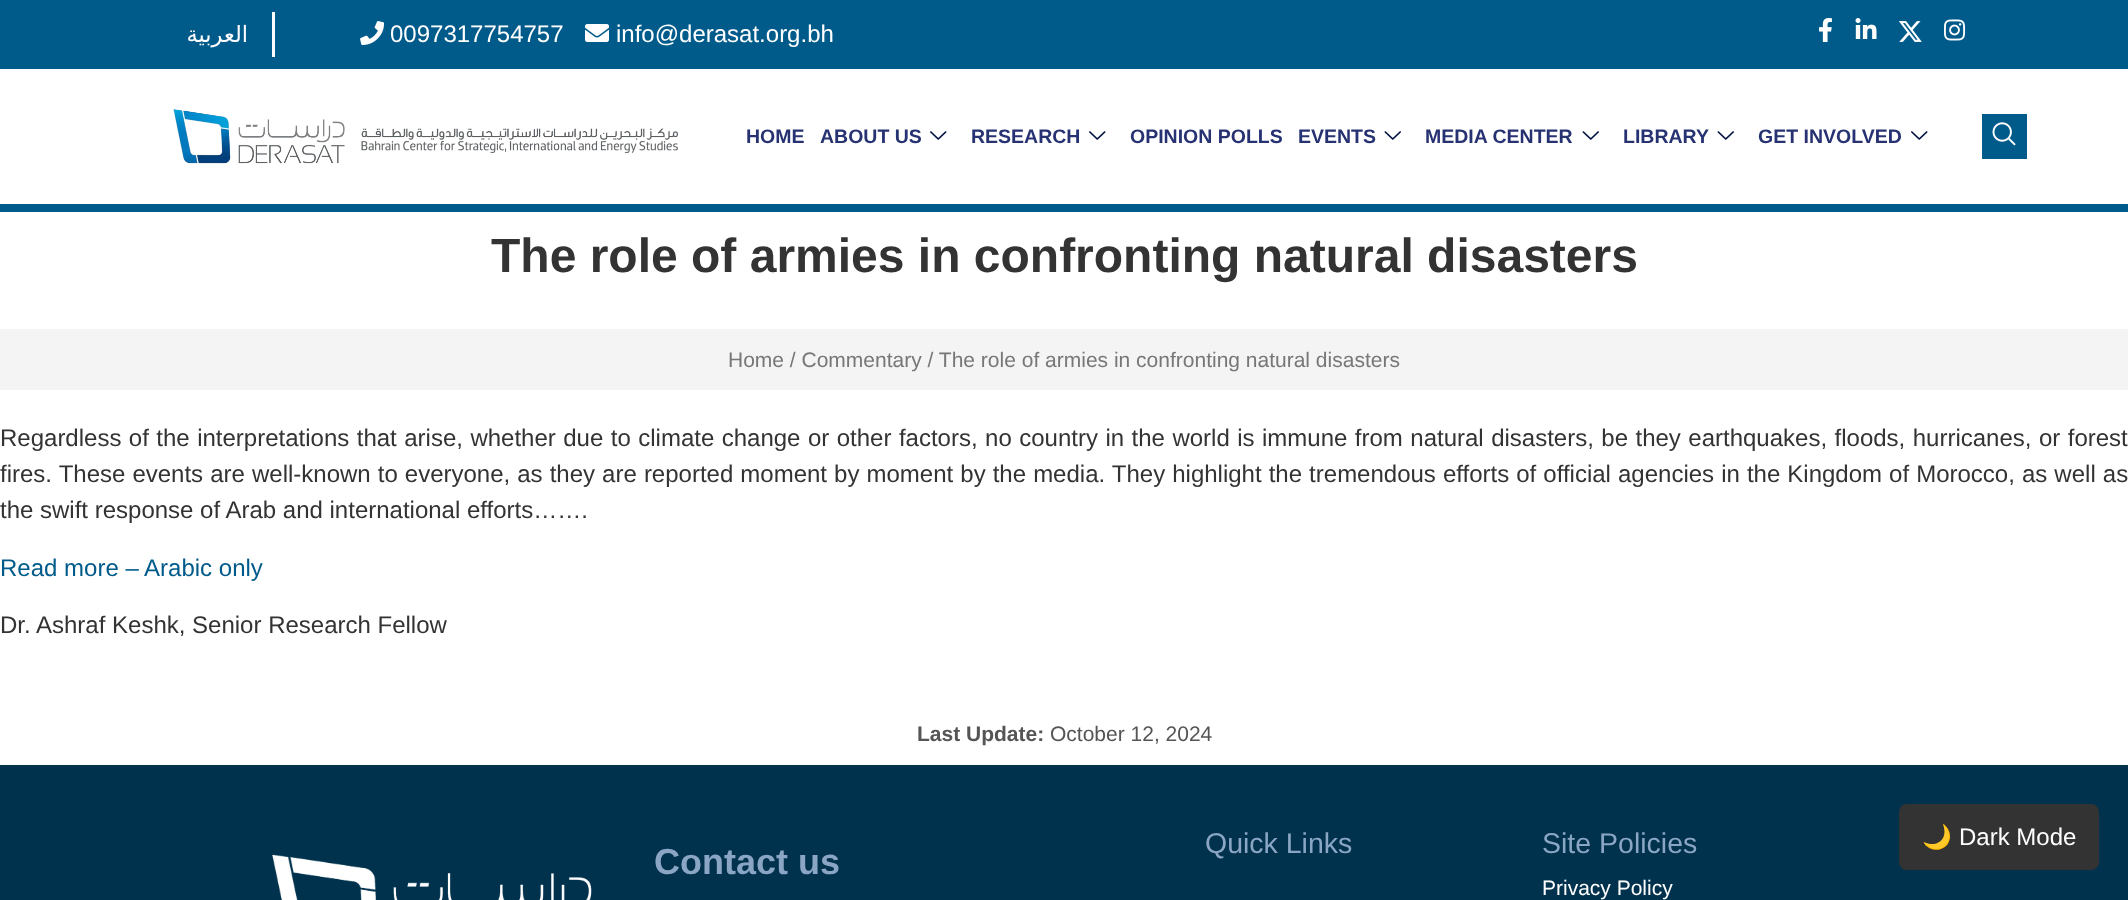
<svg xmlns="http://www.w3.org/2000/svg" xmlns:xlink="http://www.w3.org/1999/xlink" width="2128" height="900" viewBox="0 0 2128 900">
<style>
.cls-1{font:22.5px DejaVu Sans;direction:rtl;fill:#ffffff}
.cls-2{font:24px Liberation Sans;fill:#ffffff}
.cls-3{font:bold 19.5px Liberation Sans;fill:#273272}
.cls-4{font:bold 48px Liberation Sans;fill:#333333}
.cls-5{font:21px Liberation Sans;fill:#777777}
.cls-6{font:24px Liberation Sans;fill:#333333}
.cls-7{font:24px Liberation Sans;fill:#005b8b}
.cls-8{font:bold 21px Liberation Sans;fill:#555555}
.cls-9{font:21px Liberation Sans;fill:#555555}
.cls-10{font:bold 36px Liberation Sans;fill:#8aa6c4}
.cls-11{font:28.5px Liberation Sans;fill:#8aa6c4}
.cls-12{font:21px Liberation Sans;fill:#ffffff}
.cls-13{font:24px Noto Color Emoji;fill:#ffffff}
</style>
<rect width="100%" height="100%" fill="#ffffff"/>
<rect fill="#005b8b" x="0" y="0" width="2128" height="69"/>
<rect fill="#ffffff" x="272" y="12" width="3" height="45"/>
<image xlink:href="image0.png" x="360" y="21" width="25" height="24"/>
<image xlink:href="image1.png" x="585" y="24" width="24" height="18"/>
<image xlink:href="image2.png" x="1819" y="18" width="13" height="24"/>
<image xlink:href="image3.png" x="1855" y="18" width="22" height="21"/>
<image xlink:href="image4.png" x="1899" y="21" width="23" height="21"/>
<image xlink:href="image5.png" x="1944" y="19" width="22" height="22"/>
<rect fill="#005b8b" x="0" y="204" width="2128" height="8"/>
<image xlink:href="image6.png" x="173" y="109" width="505" height="55"/>
<image xlink:href="image7.png" x="930" y="131" width="17" height="9"/>
<image xlink:href="image7.png" x="1089" y="131" width="17" height="9"/>
<image xlink:href="image8.png" x="1384" y="131" width="17" height="9"/>
<image xlink:href="image8.png" x="1582" y="131" width="17" height="9"/>
<image xlink:href="image8.png" x="1717" y="131" width="17" height="9"/>
<image xlink:href="image7.png" x="1911" y="131" width="17" height="9"/>
<rect fill="#005b8b" x="1982" y="114" width="45" height="45"/>
<image xlink:href="image9.png" x="1992" y="122" width="24" height="24"/>
<rect fill="#f4f4f4" x="0" y="329" width="2128" height="61"/>
<rect fill="#00324d" x="0" y="765" width="2128" height="135"/>
<image xlink:href="image10.png" x="272" y="854" width="320" height="46"/>
<rect fill="#333333" x="1899" y="804" width="200" height="66" rx="8"/>
<text class="cls-1" x="248" y="42">العربية</text>
<text class="cls-2" x="390" y="42">0097317754757</text>
<text class="cls-2" x="616" y="42">info@derasat.org.bh</text>
<text class="cls-3" x="746" y="143">HOME</text>
<text class="cls-3" x="820" y="143">ABOUT US</text>
<text class="cls-3" x="971" y="143">RESEARCH</text>
<text class="cls-3" x="1130" y="143">OPINION POLLS</text>
<text class="cls-3" x="1298" y="143">EVENTS</text>
<text class="cls-3" x="1425" y="143">MEDIA CENTER</text>
<text class="cls-3" x="1623" y="143">LIBRARY</text>
<text class="cls-3" x="1758" y="143">GET INVOLVED</text>
<text class="cls-4" x="491" y="272">The role of armies in confronting natural disasters</text>
<text class="cls-5" x="728" y="367">Home / Commentary / The role of armies in confronting natural disasters</text>
<text class="cls-6"><tspan x="0" y="446" word-spacing="0.8">Regardless of the interpretations that arise, whether due to climate change or other factors, no country in the world is immune from natural disasters, be they earthquakes, floods, hurricanes, or forest</tspan><tspan x="0" y="482" word-spacing="0.4">fires. These events are well-known to everyone, as they are reported moment by moment by the media. They highlight the tremendous efforts of official agencies in the Kingdom of Morocco, as well as</tspan><tspan x="0" y="518">the swift response of Arab and international efforts…….</tspan></text>
<text class="cls-7" x="0" y="576">Read more – Arabic only</text>
<text class="cls-6" x="0" y="633">Dr. Ashraf Keshk, Senior Research Fellow</text>
<text class="cls-8" x="917" y="741">Last Update:</text>
<text class="cls-9" x="1050" y="741">October 12, 2024</text>
<text class="cls-10" x="654" y="874">Contact us</text>
<text class="cls-11" x="1205" y="853">Quick Links</text>
<text class="cls-11" x="1542" y="853">Site Policies</text>
<text class="cls-12" x="1542" y="895">Privacy Policy</text>
<text class="cls-13" x="1922" y="845">🌙</text>
<text class="cls-2" x="1959" y="845">Dark Mode</text>
</svg>
